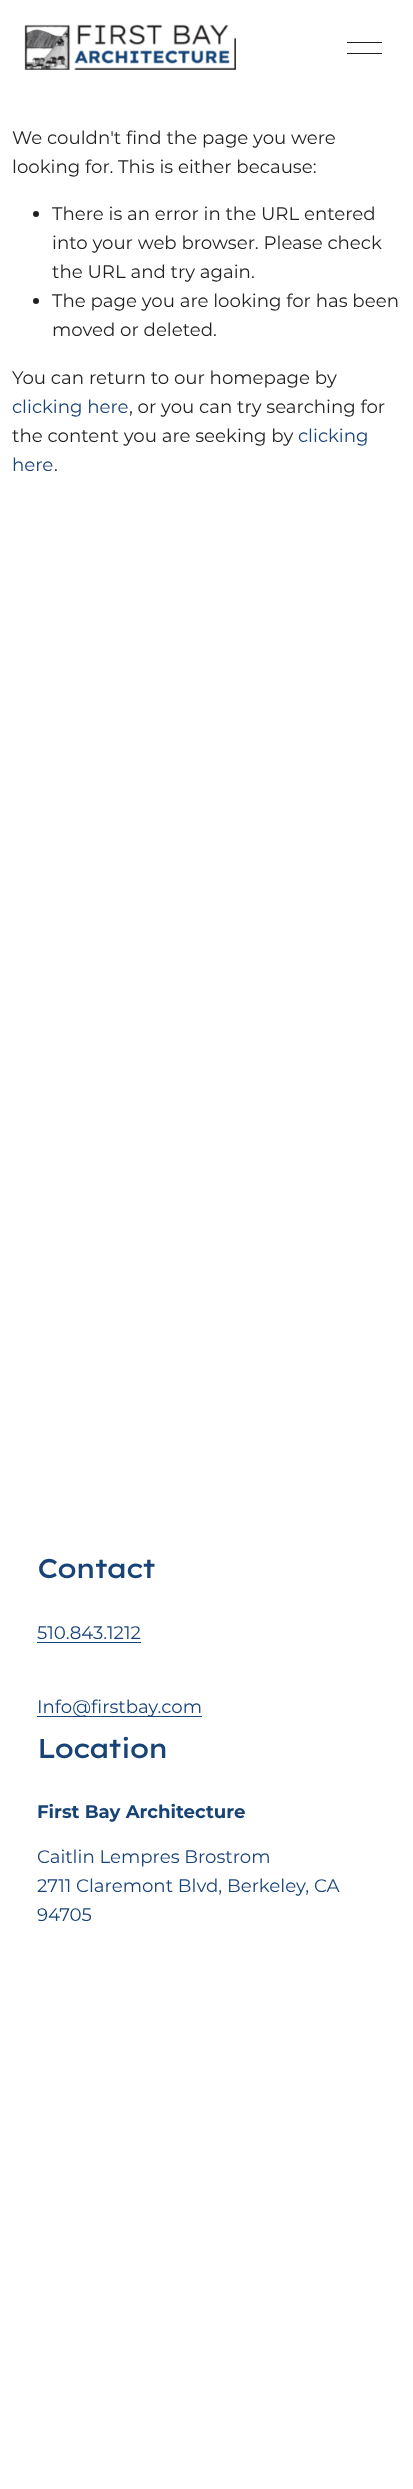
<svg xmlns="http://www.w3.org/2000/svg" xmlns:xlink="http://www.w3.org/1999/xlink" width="413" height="2489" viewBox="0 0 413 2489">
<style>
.cls-1{font:18.2px Montserrat;fill:#221f1f}
.cls-2{font:18.2px Montserrat;fill:#184377}
.cls-3{font:500 27px Lexend Exa;letter-spacing:-2px;fill:#184377}
.cls-4{font:bold 18.2px Montserrat;fill:#184377}
</style>
<rect width="100%" height="100%" fill="#ffffff"/>
<image xlink:href="image0.png" x="24" y="24" width="212" height="46"/>
<rect fill="#221f1f" x="347" y="42" width="35" height="1"/>
<rect fill="#221f1f" x="347" y="53" width="35" height="1"/>
<circle fill="#221f1f" cx="36" cy="214" r="3"/>
<circle fill="#221f1f" cx="36" cy="301" r="3"/>
<rect fill="#184377" x="37" y="1642" width="104" height="1"/>
<rect fill="#184377" x="37" y="1716" width="165" height="1"/>
<text class="cls-1"><tspan x="12" y="144">We couldn't find the page you were</tspan><tspan x="12" y="173">looking for. This is either because:</tspan></text>
<text class="cls-1"><tspan x="52" y="220">There is an error in the URL entered</tspan><tspan x="52" y="249">into your web browser. Please check</tspan><tspan x="52" y="278">the URL and try again.</tspan><tspan x="52" y="307">The page you are looking for has been</tspan><tspan x="52" y="336">moved or deleted.</tspan></text>
<text class="cls-1" x="12" y="384">You can return to our homepage by</text>
<text class="cls-2" x="12" y="413">clicking here</text>
<text class="cls-1" x="129" y="413">, or you can try searching for</text>
<text class="cls-1" x="12" y="442">the content you are seeking by</text>
<text class="cls-2" x="298" y="442">clicking</text>
<text class="cls-2" x="12" y="471">here</text>
<text class="cls-1" x="54" y="471">.</text>
<text class="cls-3" x="37" y="1578">Contact</text>
<text class="cls-2" x="37" y="1639">510.843.1212</text>
<text class="cls-2" x="37" y="1713">Info@firstbay.com</text>
<text class="cls-3" x="37" y="1758">Location</text>
<text class="cls-4" x="37" y="1818">First Bay Architecture</text>
<text class="cls-2"><tspan x="37" y="1863">Caitlin Lempres Brostrom</tspan><tspan x="37" y="1892">2711 Claremont Blvd, Berkeley, CA</tspan><tspan x="37" y="1921">94705</tspan></text>
</svg>
